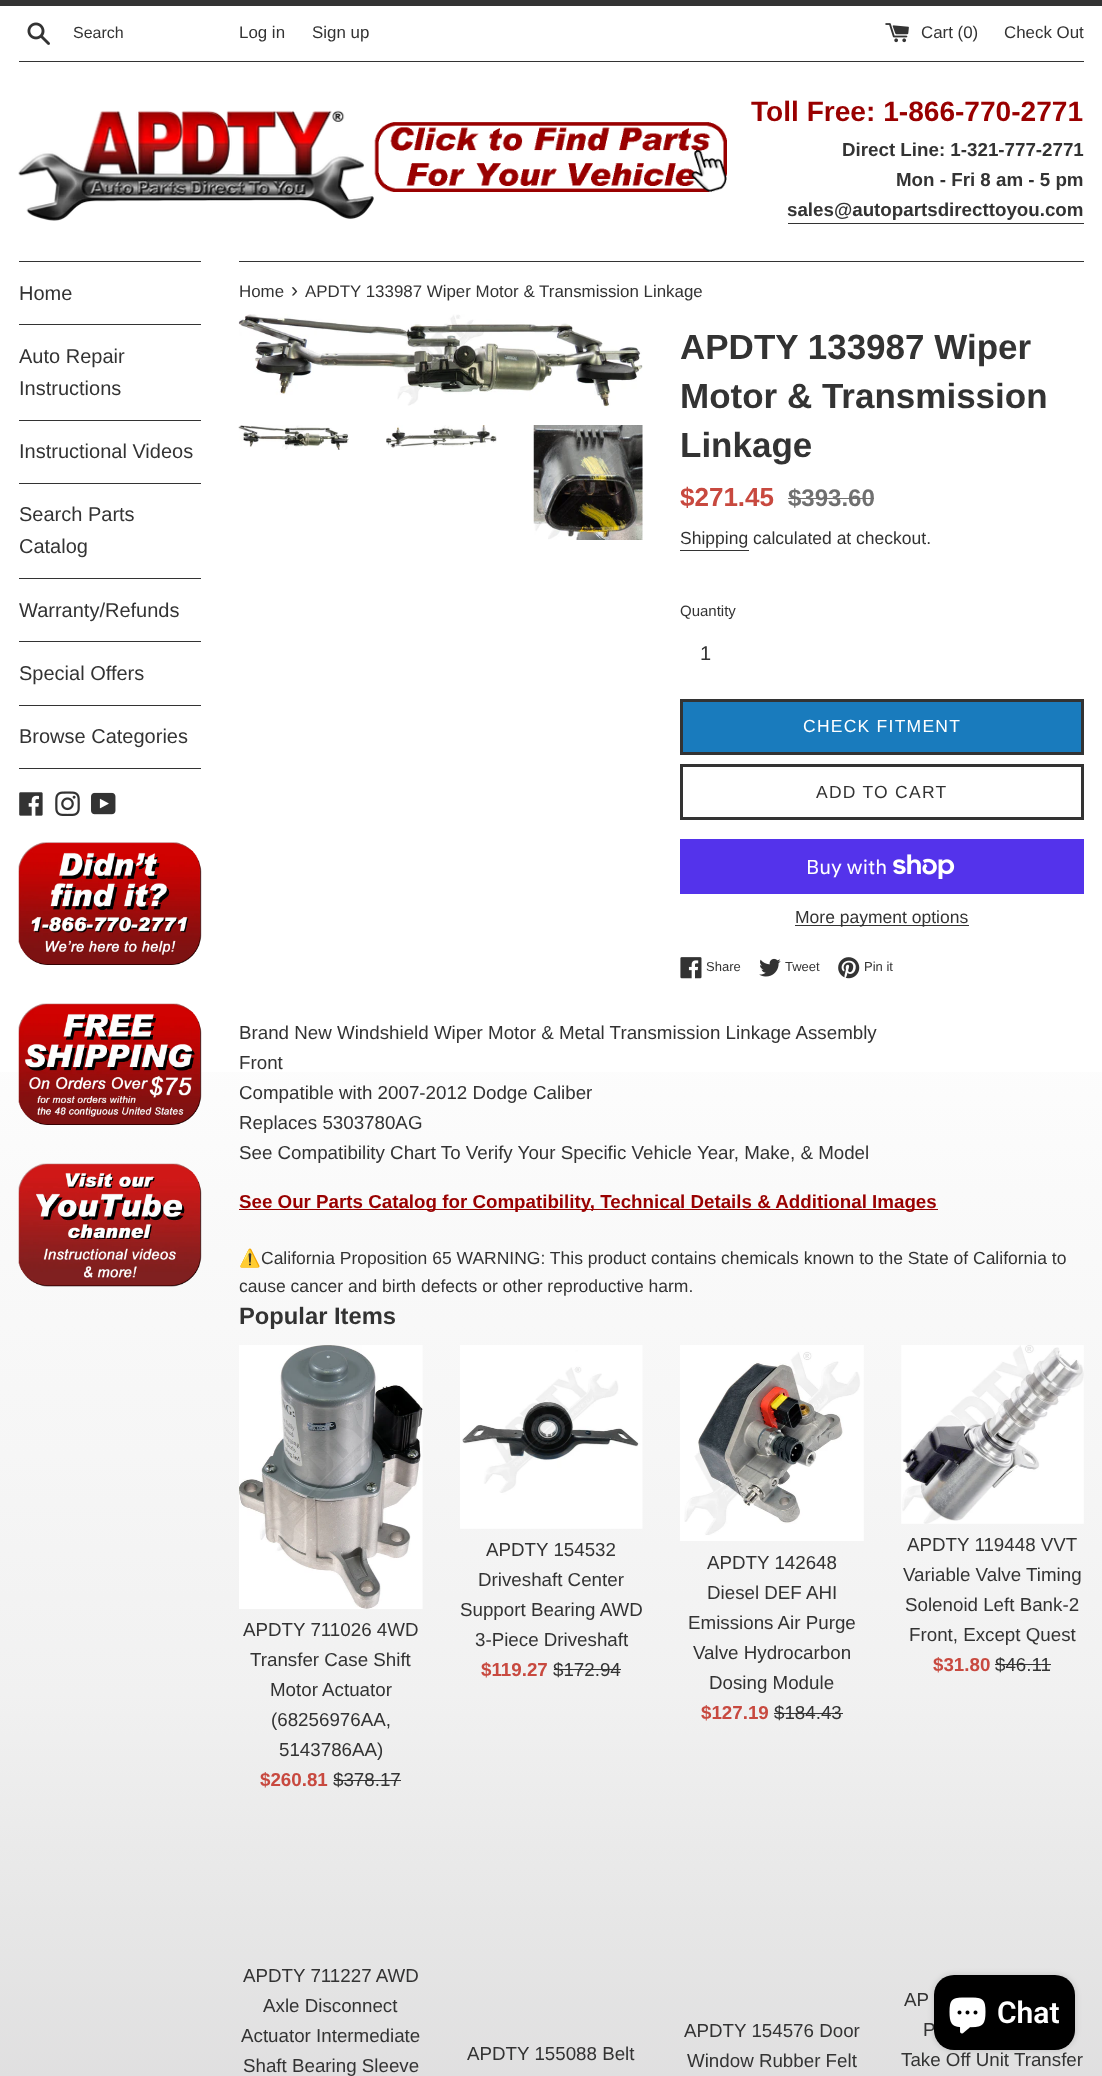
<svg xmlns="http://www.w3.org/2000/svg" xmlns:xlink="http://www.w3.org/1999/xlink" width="1102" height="2076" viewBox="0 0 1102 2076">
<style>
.cls-1{font:16px Liberation Sans;fill:#333333}
.cls-2{font:16.9px Liberation Sans;fill:#333333}
.cls-3{font:bold 28.1px Liberation Sans;fill:#990000}
.cls-4{font:bold 18.75px Liberation Sans;fill:#333333}
.cls-5{font:20px Liberation Sans;fill:#333333}
.cls-6{font:21px Liberation Sans;fill:#333333}
.cls-7{font:bold 35px Liberation Sans;fill:#333333}
.cls-8{font:bold 26px Liberation Sans;fill:#c8493f}
.cls-9{font:bold 24px Liberation Sans;fill:#707070}
.cls-10{font:17.5px Liberation Sans;fill:#333333}
.cls-11{font:15px Liberation Sans;fill:#333333}
.cls-12{font:17.5px Liberation Sans;letter-spacing:1.25px;fill:#ffffff}
.cls-13{font:17.5px Liberation Sans;letter-spacing:1.25px;fill:#333333}
.cls-14{font:20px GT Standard;fill:#ffffff}
.cls-15{font:13px Liberation Sans;fill:#333333}
.cls-16{font:18.75px Liberation Sans;fill:#333333}
.cls-17{font:bold 18.75px Liberation Sans;fill:#990000}
.cls-18{font:17.5px Noto Color Emoji;fill:#333333}
.cls-19{font:bold 23.75px Liberation Sans;fill:#333333}
.cls-20{font:bold 18.75px Liberation Sans;fill:#c8493f}
.cls-21{font:600 30px Roboto;fill:#ffffff}
</style>
<defs>
<linearGradient id="g1" gradientUnits="userSpaceOnUse" x1="551" y1="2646" x2="551" y2="0"><stop offset="0" stop-color="#c8c6c6"/><stop offset="0.09" stop-color="#d2d1d1"/><stop offset="0.18" stop-color="#dcdbdc"/><stop offset="0.27" stop-color="#e6e6e6"/><stop offset="0.36" stop-color="#f1f1f1"/><stop offset="0.45" stop-color="#f6f6f6"/><stop offset="0.55" stop-color="#fafafa"/><stop offset="0.64" stop-color="#ffffff"/><stop offset="1" stop-color="#ffffff"/></linearGradient>
</defs>
<rect width="100%" height="100%" fill="#ffffff"/>
<rect fill="url(#g1)" x="0" y="1072" width="1102" height="1004"/>
<rect fill="#333333" x="0" y="0" width="1102" height="6"/>
<image xlink:href="image0.png" x="27" y="22" width="23" height="23"/>
<image xlink:href="image1.png" x="885" y="23" width="24" height="20"/>
<rect fill="#333333" x="19" y="61" width="1065" height="1"/>
<image xlink:href="image2.png" x="18" y="110" width="356" height="111"/>
<image xlink:href="image3.png" x="374" y="122" width="353" height="70"/>
<rect fill="#333333" x="788" y="223" width="296" height="1"/>
<rect fill="#333333" x="19" y="261" width="182" height="1"/>
<rect fill="#333333" x="19" y="324" width="182" height="1"/>
<rect fill="#333333" x="19" y="420" width="182" height="1"/>
<rect fill="#333333" x="19" y="483" width="182" height="1"/>
<rect fill="#333333" x="19" y="578" width="182" height="1"/>
<rect fill="#333333" x="19" y="641" width="182" height="1"/>
<rect fill="#333333" x="19" y="705" width="182" height="1"/>
<rect fill="#333333" x="19" y="768" width="182" height="1"/>
<image xlink:href="image4.png" x="19" y="792" width="24" height="24"/>
<image xlink:href="image5.png" x="55" y="791" width="25" height="25"/>
<image xlink:href="image6.png" x="91" y="792" width="25" height="23"/>
<image xlink:href="image7.png" x="18" y="842" width="184" height="123"/>
<image xlink:href="image8.png" x="18" y="1003" width="184" height="122"/>
<image xlink:href="image9.png" x="18" y="1163" width="184" height="124"/>
<rect fill="#333333" x="239" y="261" width="845" height="1"/>
<image xlink:href="image10.png" x="238" y="314" width="405" height="93"/>
<image xlink:href="image11.png" x="238" y="425" width="111" height="25"/>
<image xlink:href="image12.png" x="386" y="425" width="111" height="23"/>
<image xlink:href="image13.png" x="533" y="425" width="110" height="115"/>
<rect fill="#707070" x="788" y="498" width="86" height="1"/>
<rect fill="#333333" x="680" y="550" width="69" height="1"/>
<rect fill="#197bbd" stroke="#333333" stroke-width="3" x="681.5" y="700.5" width="401" height="53"/>
<rect fill="none" stroke="#333333" stroke-width="3" x="681.5" y="765.5" width="401" height="53"/>
<rect fill="#5433eb" x="680" y="839" width="404" height="55"/>
<image xlink:href="image14.png" x="893" y="854" width="62" height="25"/>
<rect fill="#333333" x="795" y="925" width="174" height="1"/>
<image xlink:href="image15.png" x="680" y="957" width="22" height="22"/>
<image xlink:href="image16.png" x="759" y="958" width="22" height="19"/>
<image xlink:href="image17.png" x="838" y="957" width="22" height="22"/>
<rect fill="#990000" x="239" y="1209" width="699" height="1"/>
<image xlink:href="image18.png" x="239" y="1345" width="184" height="264"/>
<rect fill="#333333" x="334" y="1780" width="67" height="1"/>
<image xlink:href="image19.png" x="460" y="1345" width="183" height="184"/>
<rect fill="#333333" x="554" y="1669" width="67" height="1"/>
<image xlink:href="image20.png" x="680" y="1345" width="184" height="196"/>
<rect fill="#333333" x="774" y="1713" width="69" height="1"/>
<image xlink:href="image21.png" x="901" y="1345" width="183" height="179"/>
<rect fill="#333333" x="995" y="1664" width="56" height="1"/>
<rect fill="#000000" fill-opacity="0.15" filter="blur(3px)" x="934" y="1975" width="141" height="75" rx="20"/>
<text class="cls-1" x="73" y="38">Search</text>
<text class="cls-2" x="239" y="38">Log in</text>
<text class="cls-2" x="312" y="38">Sign up</text>
<text class="cls-2" x="921" y="38">Cart (0)</text>
<text class="cls-2" x="1004" y="38">Check Out</text>
<text class="cls-3" x="751" y="121">Toll Free: 1-866-770-2771</text>
<text class="cls-4" x="842" y="156">Direct Line: 1-321-777-2771</text>
<text class="cls-4" x="896" y="186">Mon - Fri 8 am - 5 pm</text>
<text class="cls-4" x="787" y="216">sales@autopartsdirecttoyou.com</text>
<text class="cls-5" x="19" y="300">Home</text>
<text class="cls-5"><tspan x="19" y="363">Auto Repair</tspan><tspan x="19" y="395">Instructions</tspan></text>
<text class="cls-5" x="19" y="458">Instructional Videos</text>
<text class="cls-5"><tspan x="19" y="521">Search Parts</tspan><tspan x="19" y="553">Catalog</tspan></text>
<text class="cls-5" x="19" y="617">Warranty/Refunds</text>
<text class="cls-5" x="19" y="680">Special Offers</text>
<text class="cls-5" x="19" y="743">Browse Categories</text>
<text class="cls-2" x="239" y="297">Home</text>
<text class="cls-6" x="291" y="297">›</text>
<text class="cls-2" x="305" y="297">APDTY 133987 Wiper Motor &amp; Transmission Linkage</text>
<text class="cls-7"><tspan x="680" y="359">APDTY 133987 Wiper</tspan><tspan x="680" y="408">Motor &amp; Transmission</tspan><tspan x="680" y="457">Linkage</tspan></text>
<text class="cls-8" x="680" y="506">$271.45</text>
<text class="cls-9" x="788" y="506">$393.60</text>
<text class="cls-10" x="680" y="544">Shipping calculated at checkout.</text>
<text class="cls-11" x="680" y="616">Quantity</text>
<text class="cls-5" x="700" y="660">1</text>
<text class="cls-12" x="803" y="732">CHECK FITMENT</text>
<text class="cls-13" x="816" y="798">ADD TO CART</text>
<text class="cls-14" x="806" y="874">Buy with</text>
<text class="cls-10" x="795" y="923">More payment options</text>
<text class="cls-15" x="706" y="971">Share</text>
<text class="cls-15" x="785" y="971">Tweet</text>
<text class="cls-15" x="864" y="971">Pin it</text>
<text class="cls-16"><tspan x="239" y="1039">Brand New Windshield Wiper Motor &amp; Metal Transmission Linkage Assembly</tspan><tspan x="239" y="1069">Front</tspan><tspan x="239" y="1099">Compatible with 2007-2012 Dodge Caliber</tspan><tspan x="239" y="1129">Replaces 5303780AG</tspan><tspan x="239" y="1159">See Compatibility Chart To Verify Your Specific Vehicle Year, Make, &amp; Model</tspan></text>
<text class="cls-17" x="239" y="1208">See Our Parts Catalog for Compatibility, Technical Details &amp; Additional Images</text>
<text class="cls-18" x="239" y="1264">⚠️</text>
<text class="cls-10" x="261" y="1264">California Proposition 65 WARNING: This product contains chemicals known to the State of California to</text>
<text class="cls-10" x="239" y="1292">cause cancer and birth defects or other reproductive harm.</text>
<text class="cls-19" x="239" y="1324">Popular Items</text>
<text class="cls-16" x="243" y="1636">APDTY 711026 4WD</text>
<text class="cls-16" x="250" y="1666">Transfer Case Shift</text>
<text class="cls-16" x="270" y="1696">Motor Actuator</text>
<text class="cls-16" x="271" y="1726">(68256976AA,</text>
<text class="cls-16" x="279" y="1756">5143786AA)</text>
<text class="cls-20" x="260" y="1786">$260.81</text>
<text class="cls-16" x="333" y="1786">$378.17</text>
<text class="cls-16" x="486" y="1556">APDTY 154532</text>
<text class="cls-16" x="478" y="1586">Driveshaft Center</text>
<text class="cls-16" x="460" y="1616">Support Bearing AWD</text>
<text class="cls-16" x="475" y="1646">3-Piece Driveshaft</text>
<text class="cls-20" x="481" y="1676">$119.27</text>
<text class="cls-16" x="553" y="1676">$172.94</text>
<text class="cls-16"><tspan x="707" y="1569">APDTY 142648</tspan><tspan x="707" y="1599">Diesel DEF AHI</tspan></text>
<text class="cls-16" x="688" y="1629">Emissions Air Purge</text>
<text class="cls-16" x="693" y="1659">Valve Hydrocarbon</text>
<text class="cls-16" x="709" y="1689">Dosing Module</text>
<text class="cls-20" x="701" y="1719">$127.19</text>
<text class="cls-16" x="774" y="1719">$184.43</text>
<text class="cls-16" x="907" y="1551">APDTY 119448 VVT</text>
<text class="cls-16" x="903" y="1581">Variable Valve Timing</text>
<text class="cls-16" x="905" y="1611">Solenoid Left Bank-2</text>
<text class="cls-16" x="909" y="1641">Front, Except Quest</text>
<text class="cls-20" x="933" y="1671">$31.80</text>
<text class="cls-16" x="995" y="1671">$46.11</text>
<text class="cls-16" x="243" y="1982">APDTY 711227 AWD</text>
<text class="cls-16" x="263" y="2012">Axle Disconnect</text>
<text class="cls-16" x="241" y="2042">Actuator Intermediate</text>
<text class="cls-16" x="243" y="2072">Shaft Bearing Sleeve</text>
<text class="cls-16" x="467" y="2060">APDTY 155088 Belt</text>
<text class="cls-16" x="684" y="2037">APDTY 154576 Door</text>
<text class="cls-16" x="687" y="2067">Window Rubber Felt</text>
<text class="cls-16" x="904" y="2006">AP</text>
<text class="cls-16" x="923" y="2036">P</text>
<text class="cls-16" x="901" y="2066">Take Off Unit Transfer</text>
<rect fill="#000000" x="934" y="1975" width="141" height="75" rx="20"/>
<image xlink:href="image22.png" x="949" y="1997" width="37" height="37"/>
<text class="cls-21" x="997" y="2023">Chat</text>
</svg>
